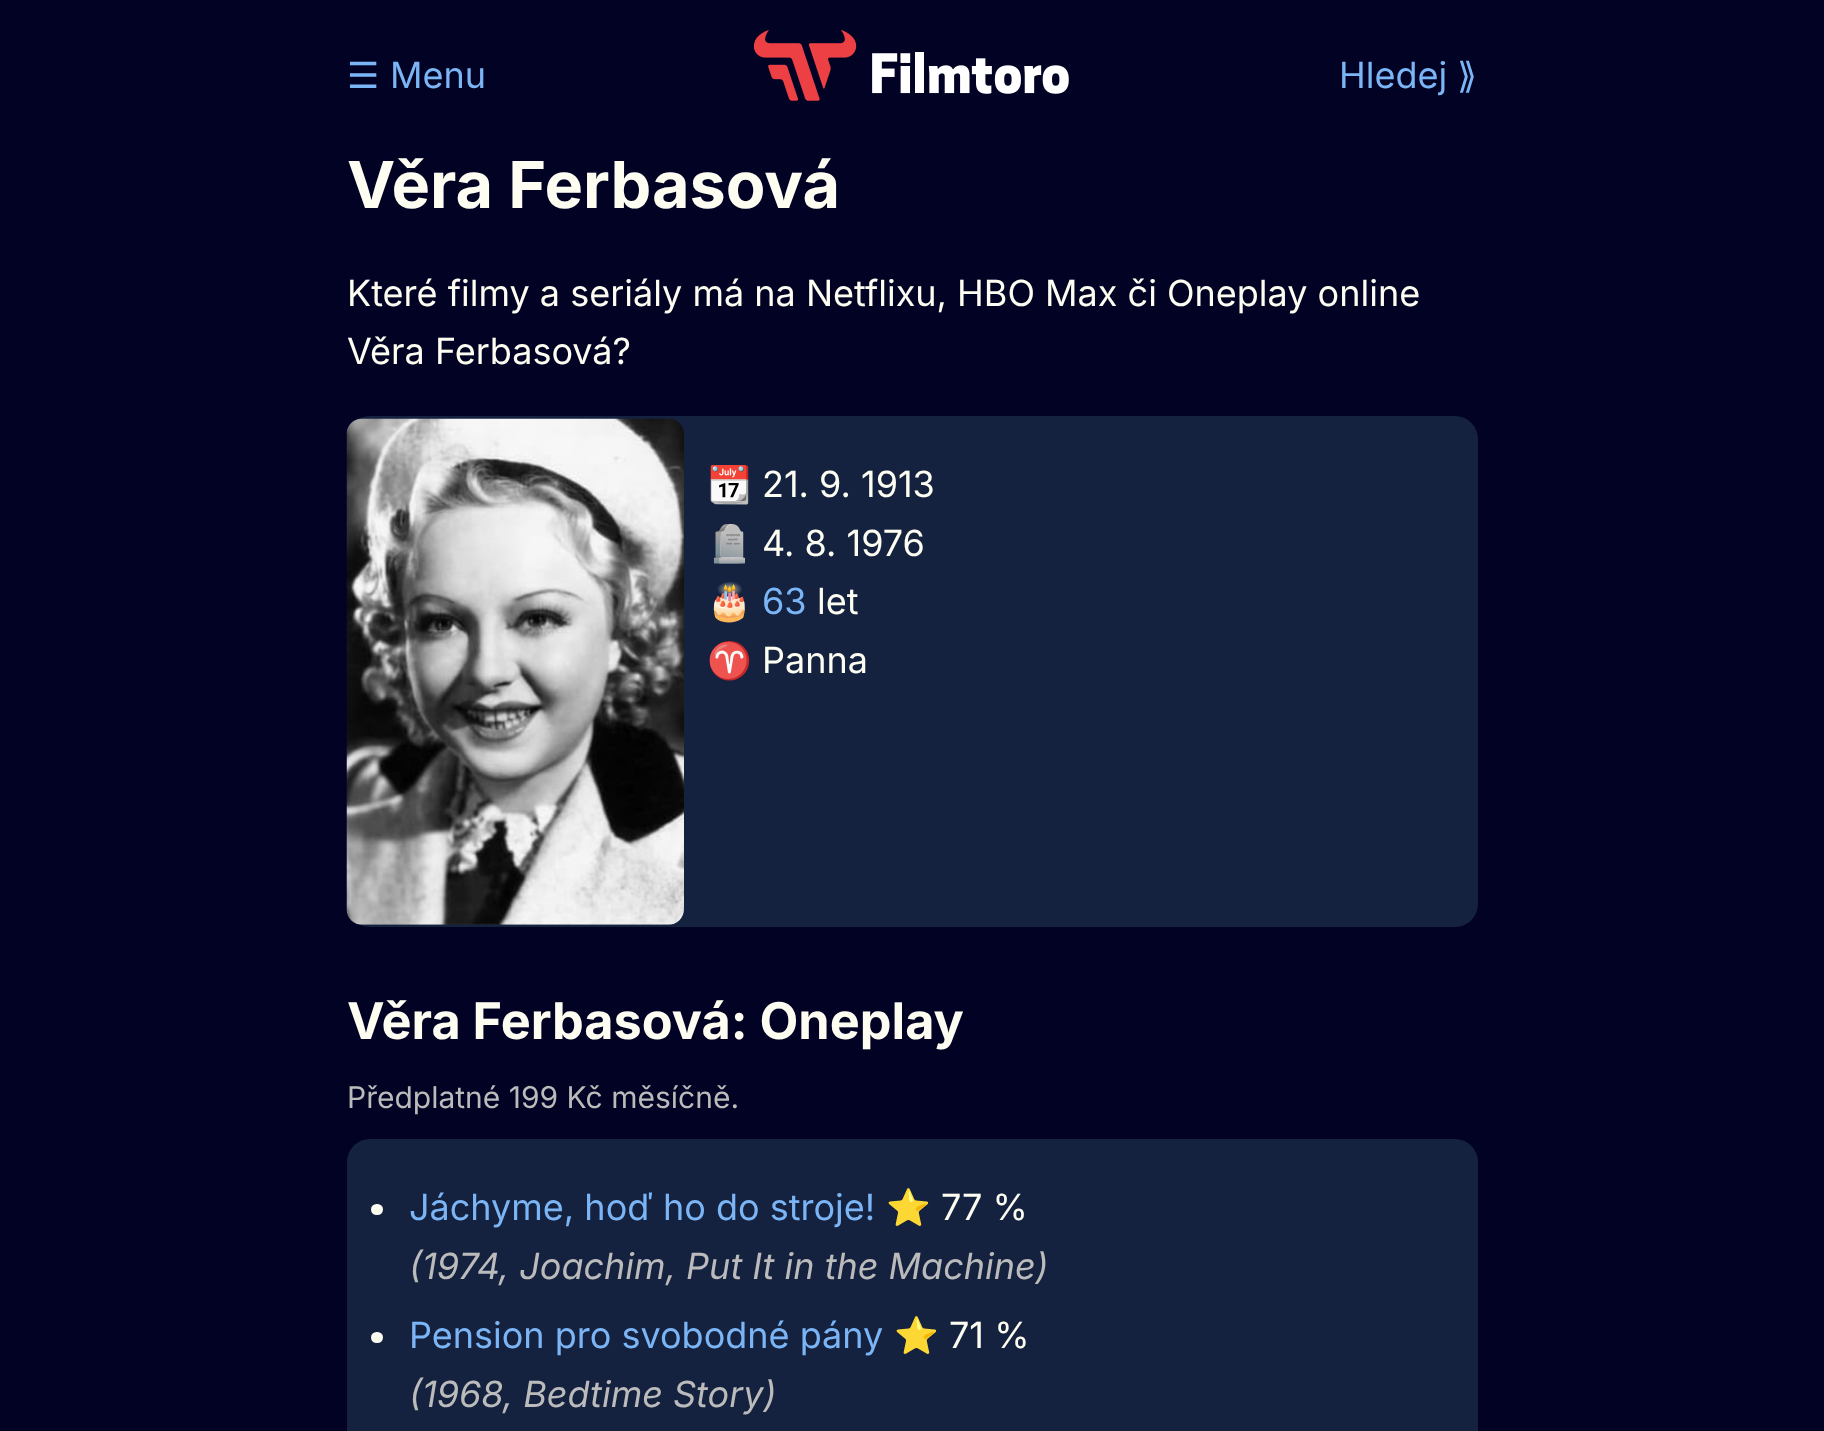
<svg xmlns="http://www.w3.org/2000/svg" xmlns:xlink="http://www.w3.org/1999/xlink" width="1824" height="1431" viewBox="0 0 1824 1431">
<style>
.cls-1{font:36px DejaVu Sans;fill:#7bb5f5}
.cls-2{font:36px Inter;fill:#7bb5f5}
.cls-3{font:bold 64.75px Inter;fill:#fdfdf1}
.cls-4{font:36px Inter;fill:#fdfdf1}
.cls-5{font:36px Noto Color Emoji;fill:#fdfdf1}
.cls-6{font:bold 50.4px Inter;fill:#fdfdf1}
.cls-7{font:30px Inter;fill:#bbbbbb}
.cls-8{font:italic 36px Inter;fill:#bbbbbb}
</style>
<rect width="100%" height="100%" fill="#020324"/>
<image xlink:href="image0.png" x="754" y="29" width="315" height="72"/>
<rect fill="#142240" x="347" y="416" width="1131" height="511" rx="23"/>
<image xlink:href="image1.png" x="346" y="418" width="338" height="507"/>
<rect fill="#142240" x="347" y="1139" width="1131" height="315" rx="23"/>
<rect fill="#fdfdf1" x="371" y="1204" width="12" height="11" rx="5.5"/>
<rect fill="#fdfdf1" x="371" y="1332" width="12" height="11" rx="5.5"/>
<text class="cls-1" x="347" y="88">☰</text>
<text class="cls-2" x="390" y="88">Menu</text>
<text class="cls-2" x="1339" y="88">Hledej</text>
<text class="cls-1" x="1457" y="88">⟫</text>
<text class="cls-3" x="347" y="208">Věra Ferbasová</text>
<text class="cls-4"><tspan x="347" y="306">Které filmy a seriály má na Netflixu, HBO Max či Oneplay online</tspan><tspan x="347" y="364">Věra Ferbasová?</tspan></text>
<text class="cls-5" x="707" y="497">📆</text>
<text class="cls-4" x="762" y="497">21. 9. 1913</text>
<text class="cls-5" x="707" y="556">🪦</text>
<text class="cls-4" x="762" y="556">4. 8. 1976</text>
<text class="cls-5" x="707" y="614">🎂</text>
<text class="cls-2" x="762" y="614">63</text>
<text class="cls-4" x="817" y="614">let</text>
<text class="cls-5" x="707" y="673">♈️</text>
<text class="cls-4" x="762" y="673">Panna</text>
<text class="cls-6" x="347" y="1039">Věra Ferbasová: Oneplay</text>
<text class="cls-7" x="347" y="1108">Předplatné 199 Kč měsíčně.</text>
<text class="cls-2" x="409" y="1220">Jáchyme, hoď ho do stroje!</text>
<text class="cls-5" x="886" y="1220">⭐️</text>
<text class="cls-4" x="941" y="1220">77 %</text>
<text class="cls-8" x="409" y="1279">(1974, Joachim, Put It in the Machine)</text>
<text class="cls-2" x="409" y="1348">Pension pro svobodné pány</text>
<text class="cls-5" x="894" y="1348">⭐️</text>
<text class="cls-4" x="949" y="1348">71 %</text>
<text class="cls-8" x="409" y="1407">(1968, Bedtime Story)</text>
</svg>
